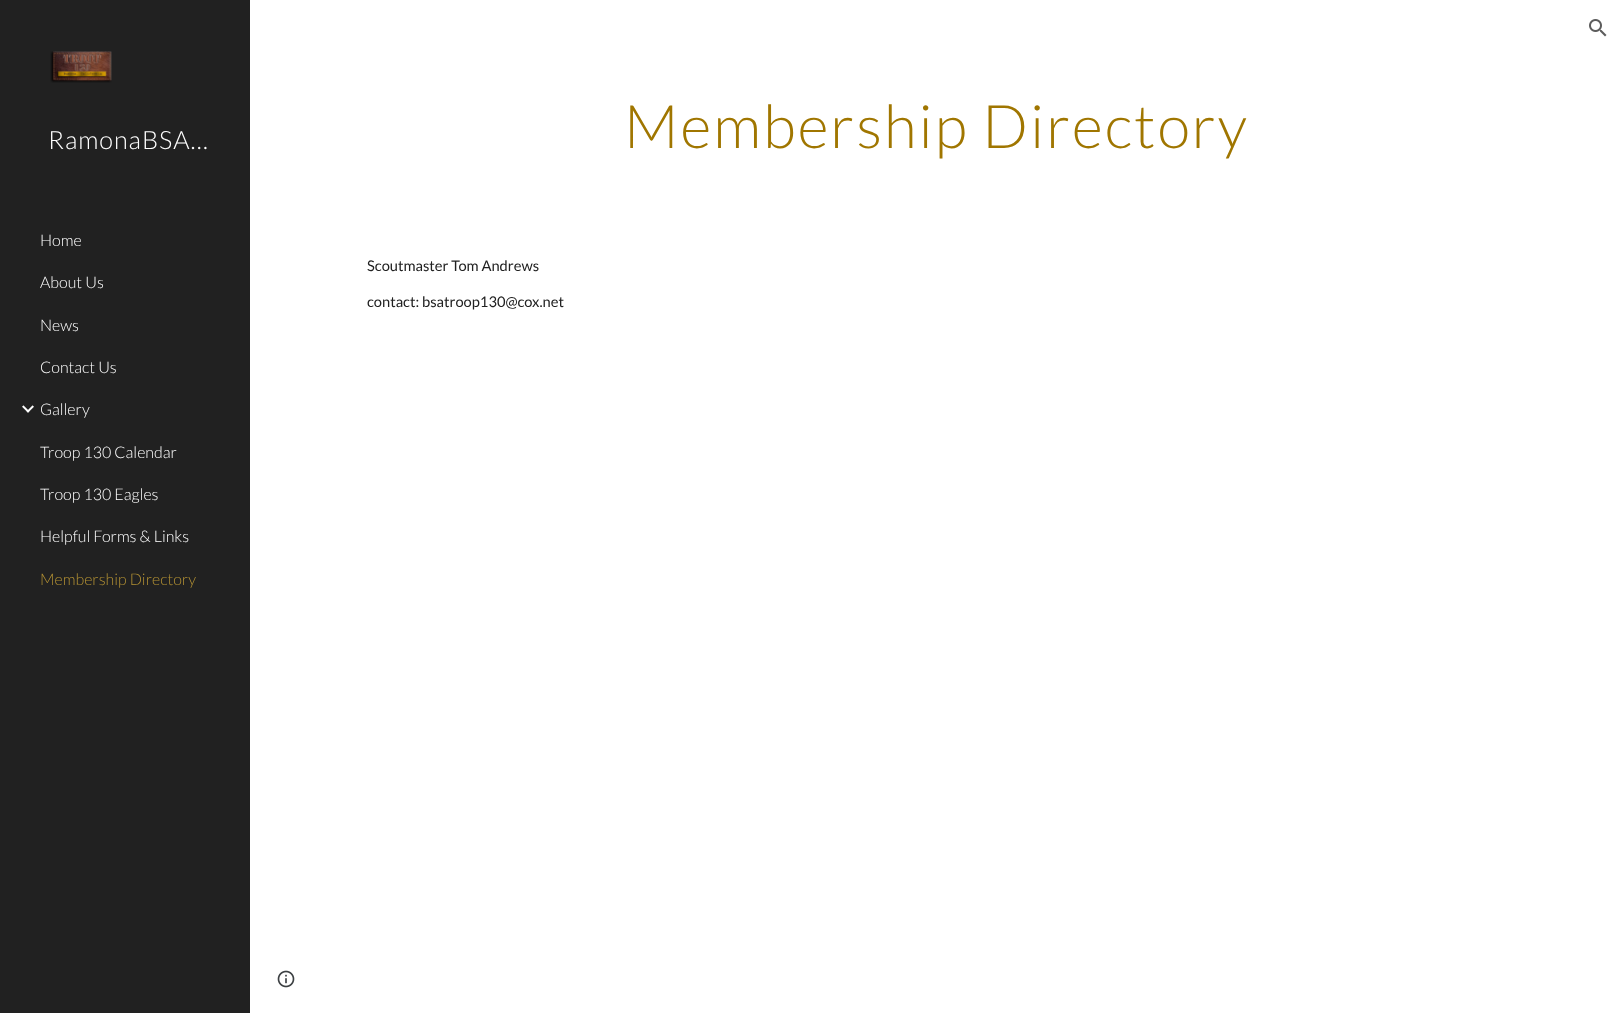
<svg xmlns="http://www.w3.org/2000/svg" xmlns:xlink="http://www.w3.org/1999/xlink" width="1622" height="1013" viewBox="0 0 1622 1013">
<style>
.cls-1{font:300 25.25px Lato;letter-spacing:1px;fill:#ffffff}
.cls-2{font:300 16px Lato;fill:#ffffff}
.cls-3{font:300 16px Lato;fill:#b39133}
.cls-4{font:300 60px Lato;letter-spacing:2px;fill:#a07600}
.cls-5{font:14.7px Lato;fill:#212121}
</style>
<rect width="100%" height="100%" fill="#ffffff"/>
<image xlink:href="image0.png" x="1589" y="19" width="18" height="18"/>
<rect fill="#212121" x="0" y="0" width="250" height="1013"/>
<image xlink:href="image1.png" x="50" y="51" width="62" height="32"/>
<image xlink:href="image2.png" x="22" y="405" width="12" height="8"/>
<image xlink:href="image3.png" x="277" y="970" width="18" height="18"/>
<text class="cls-1" x="48" y="149">RamonaBSA…</text>
<text class="cls-2" x="40" y="246">Home</text>
<text class="cls-2" x="40" y="288">About Us</text>
<text class="cls-2" x="40" y="331">News</text>
<text class="cls-2" x="40" y="373">Contact Us</text>
<text class="cls-2" x="40" y="415">Gallery</text>
<text class="cls-2" x="40" y="458">Troop 130 Calendar</text>
<text class="cls-2" x="40" y="500">Troop 130 Eagles</text>
<text class="cls-2" x="40" y="542">Helpful Forms &amp; Links</text>
<text class="cls-3" x="40" y="585">Membership Directory</text>
<text class="cls-4" x="624" y="148">Membership Directory</text>
<text class="cls-5" x="367" y="271">Scoutmaster Tom Andrews</text>
<text class="cls-5" x="367" y="307">contact: bsatroop130@cox.net</text>
</svg>
